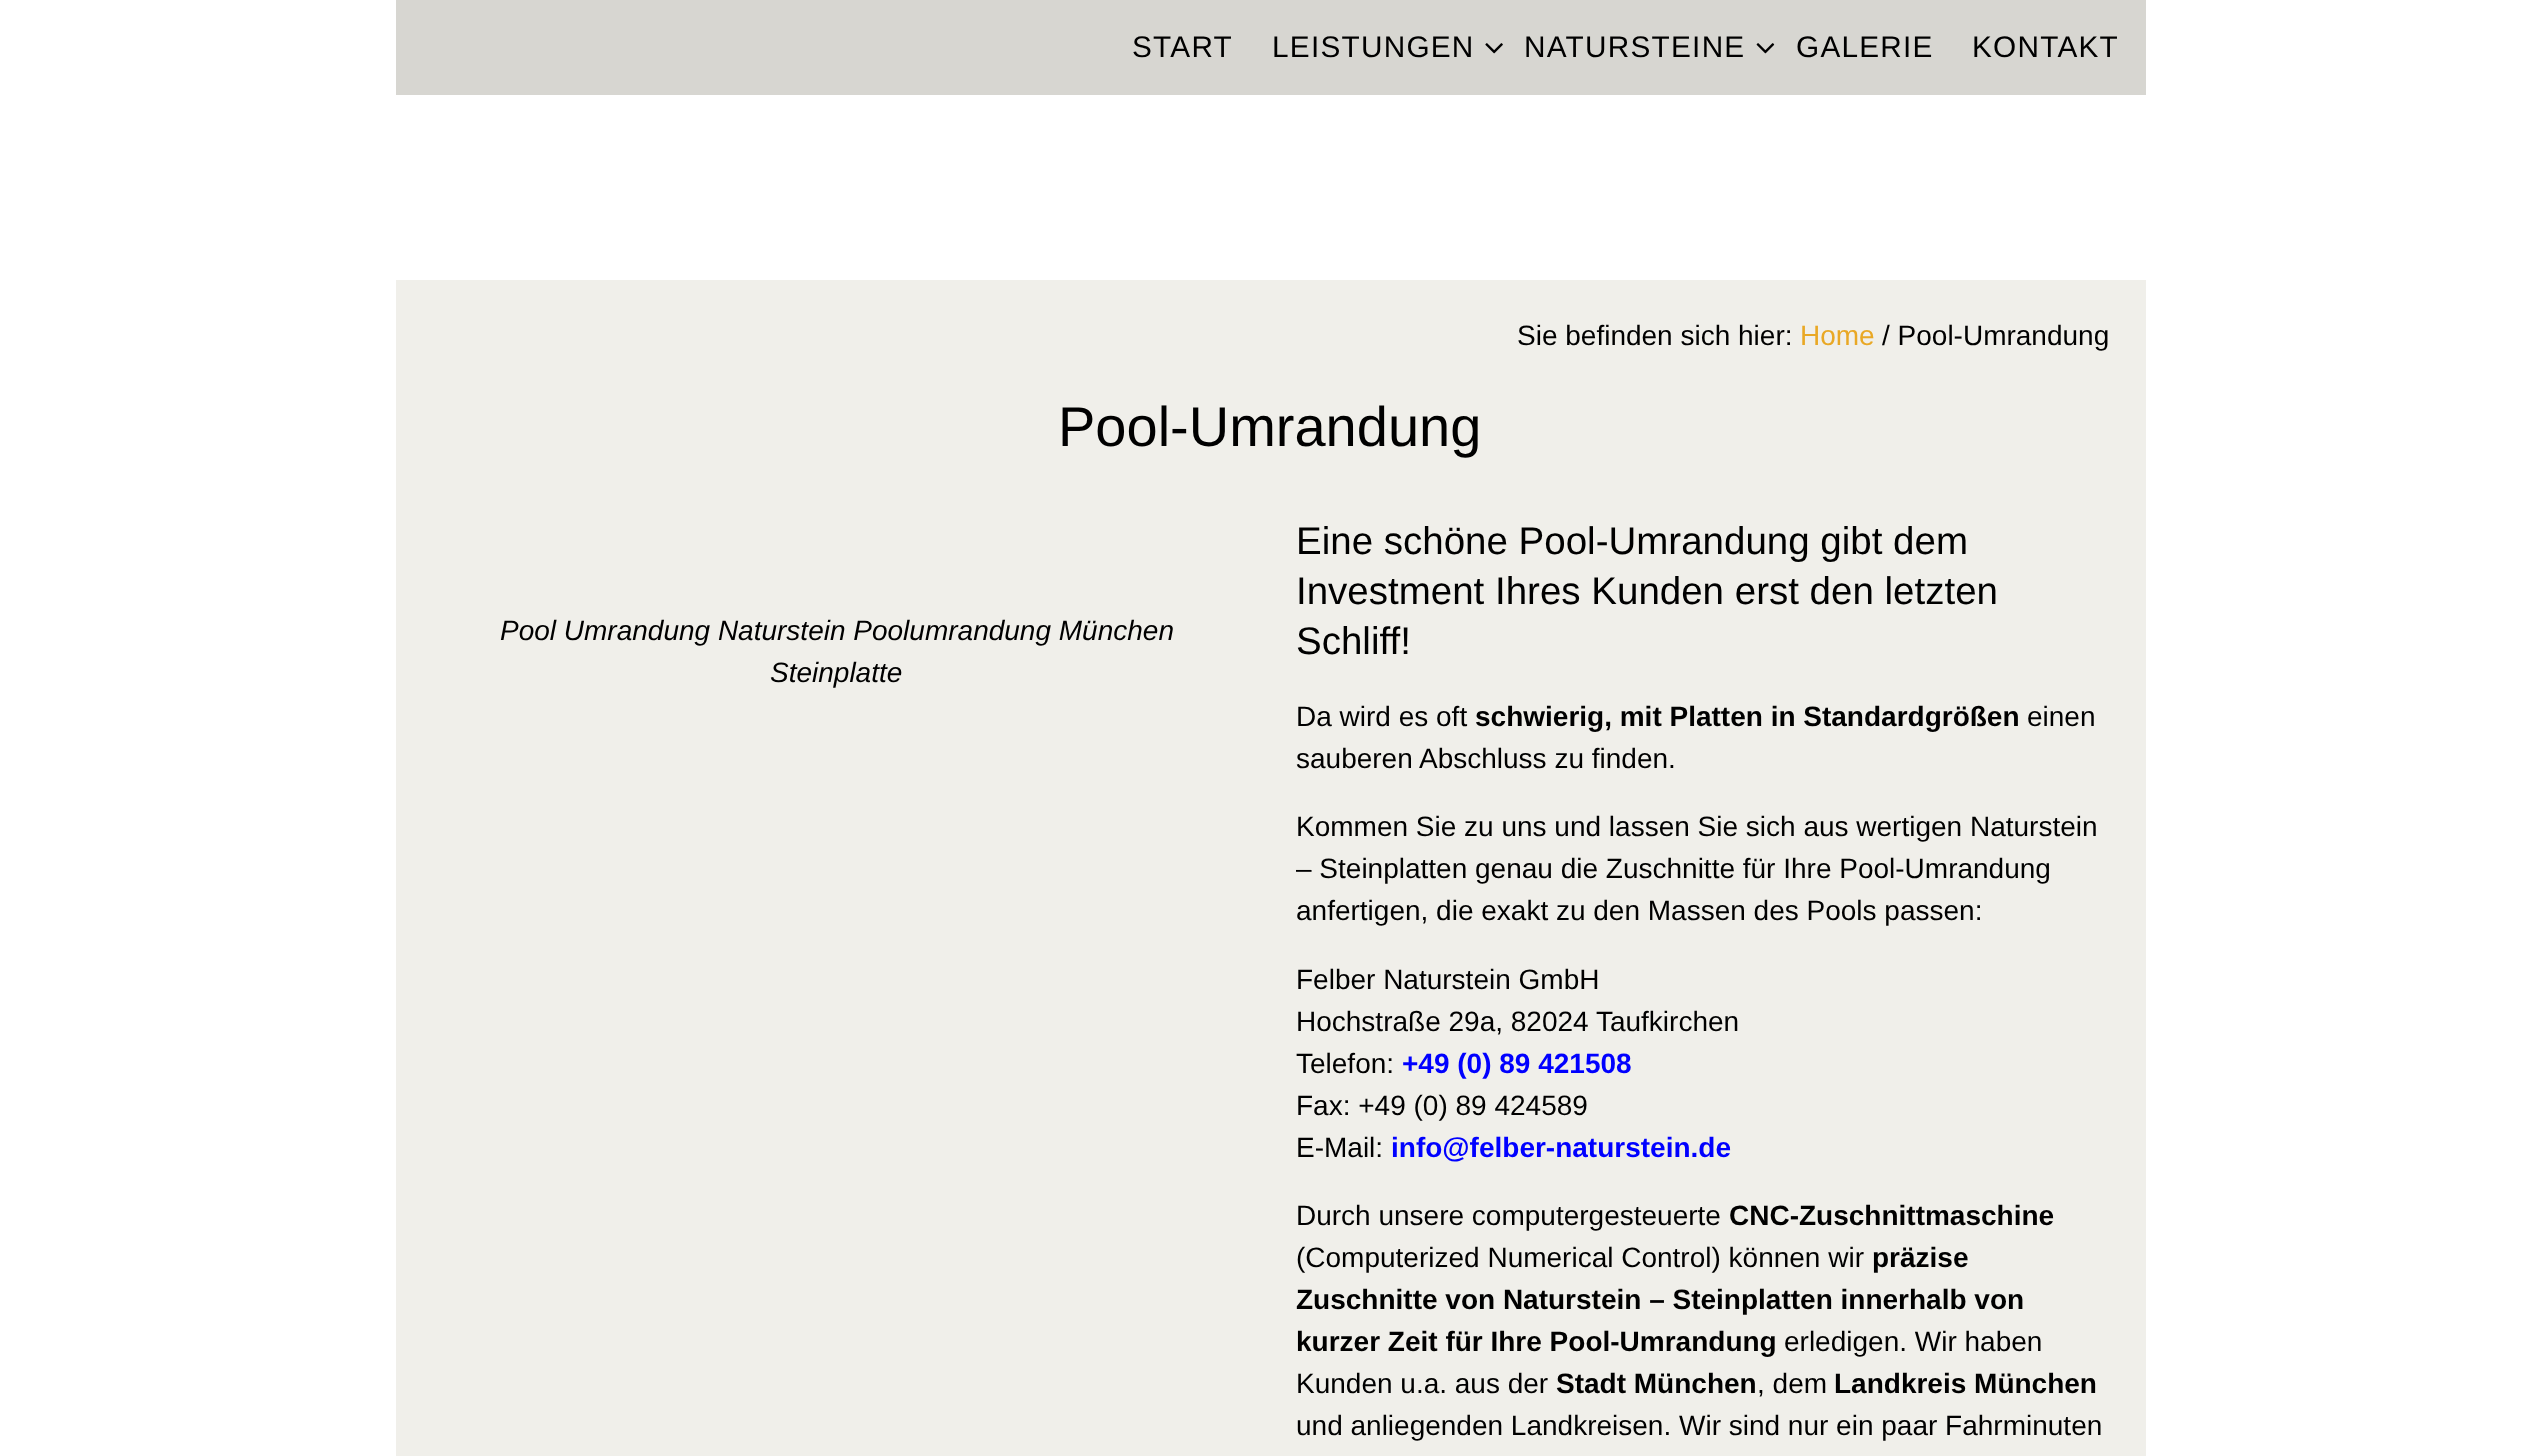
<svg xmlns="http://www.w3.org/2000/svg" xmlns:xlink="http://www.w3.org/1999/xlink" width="2539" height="1456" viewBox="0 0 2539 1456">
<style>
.cls-1{font:29.75px Liberation Sans;letter-spacing:1.25px;fill:#000000}
.cls-2{font:28px Liberation Sans;fill:#000000}
.cls-3{font:28px Liberation Sans;fill:#e9a825}
.cls-4{font:56px Liberation Sans;fill:#000000}
.cls-5{font:italic 28px Liberation Sans;fill:#000000}
.cls-6{font:38.5px Liberation Sans;fill:#000000}
.cls-7{font:bold 28px Liberation Sans;fill:#000000}
.cls-8{font:bold 28px Liberation Sans;fill:#0000ff}
</style>
<rect width="100%" height="100%" fill="#ffffff"/>
<rect fill="#d7d6d1" x="396" y="0" width="1750" height="95"/>
<image xlink:href="image0.png" x="1485" y="43" width="18" height="11"/>
<image xlink:href="image1.png" x="1756" y="43" width="19" height="11"/>
<rect fill="#f0efea" x="396" y="280" width="1750" height="1176"/>
<text class="cls-1" x="1132" y="57">START</text>
<text class="cls-1" x="1272" y="57">LEISTUNGEN</text>
<text class="cls-1" x="1524" y="57">NATURSTEINE</text>
<text class="cls-1" x="1796" y="57">GALERIE</text>
<text class="cls-1" x="1972" y="57">KONTAKT</text>
<text class="cls-2" x="1517" y="345">Sie befinden sich hier:</text>
<text class="cls-3" x="1800" y="345">Home</text>
<text class="cls-2" x="1882" y="345">/ Pool-Umrandung</text>
<text class="cls-4" x="1058" y="446">Pool-Umrandung</text>
<text class="cls-5" x="500" y="640">Pool Umrandung Naturstein Poolumrandung München</text>
<text class="cls-5" x="770" y="682">Steinplatte</text>
<text class="cls-6"><tspan x="1296" y="554">Eine schöne Pool-Umrandung gibt dem</tspan><tspan x="1296" y="604">Investment Ihres Kunden erst den letzten</tspan><tspan x="1296" y="654">Schliff!</tspan></text>
<text class="cls-2" x="1296" y="726">Da wird es oft</text>
<text class="cls-7" x="1475" y="726">schwierig, mit Platten in Standardgrößen</text>
<text class="cls-2" x="2027" y="726">einen</text>
<text class="cls-2" x="1296" y="768">sauberen Abschluss zu finden.</text>
<text class="cls-2"><tspan x="1296" y="836">Kommen Sie zu uns und lassen Sie sich aus wertigen Naturstein</tspan><tspan x="1296" y="878">– Steinplatten genau die Zuschnitte für Ihre Pool-Umrandung</tspan><tspan x="1296" y="920">anfertigen, die exakt zu den Massen des Pools passen:</tspan></text>
<text class="cls-2"><tspan x="1296" y="989">Felber Naturstein GmbH</tspan><tspan x="1296" y="1031">Hochstraße 29a, 82024 Taufkirchen</tspan><tspan x="1296" y="1073">Telefon:</tspan></text>
<text class="cls-8" x="1402" y="1073">+49 (0) 89 421508</text>
<text class="cls-2"><tspan x="1296" y="1115">Fax: +49 (0) 89 424589</tspan><tspan x="1296" y="1157">E-Mail:</tspan></text>
<text class="cls-8" x="1391" y="1157">info@felber-naturstein.de</text>
<text class="cls-2" x="1296" y="1225">Durch unsere computergesteuerte</text>
<text class="cls-7" x="1729" y="1225">CNC-Zuschnittmaschine</text>
<text class="cls-2" x="1296" y="1267">(Computerized Numerical Control) können wir</text>
<text class="cls-7" x="1872" y="1267">präzise</text>
<text class="cls-7"><tspan x="1296" y="1309">Zuschnitte von Naturstein – Steinplatten innerhalb von</tspan><tspan x="1296" y="1351">kurzer Zeit für Ihre Pool-Umrandung</tspan></text>
<text class="cls-2" x="1784" y="1351">erledigen. Wir haben</text>
<text class="cls-2" x="1296" y="1393">Kunden u.a. aus der</text>
<text class="cls-7" x="1556" y="1393">Stadt München</text>
<text class="cls-2" x="1757" y="1393">, dem</text>
<text class="cls-7" x="1834" y="1393">Landkreis München</text>
<text class="cls-2" x="1296" y="1435">und anliegenden Landkreisen. Wir sind nur ein paar Fahrminuten</text>
</svg>
